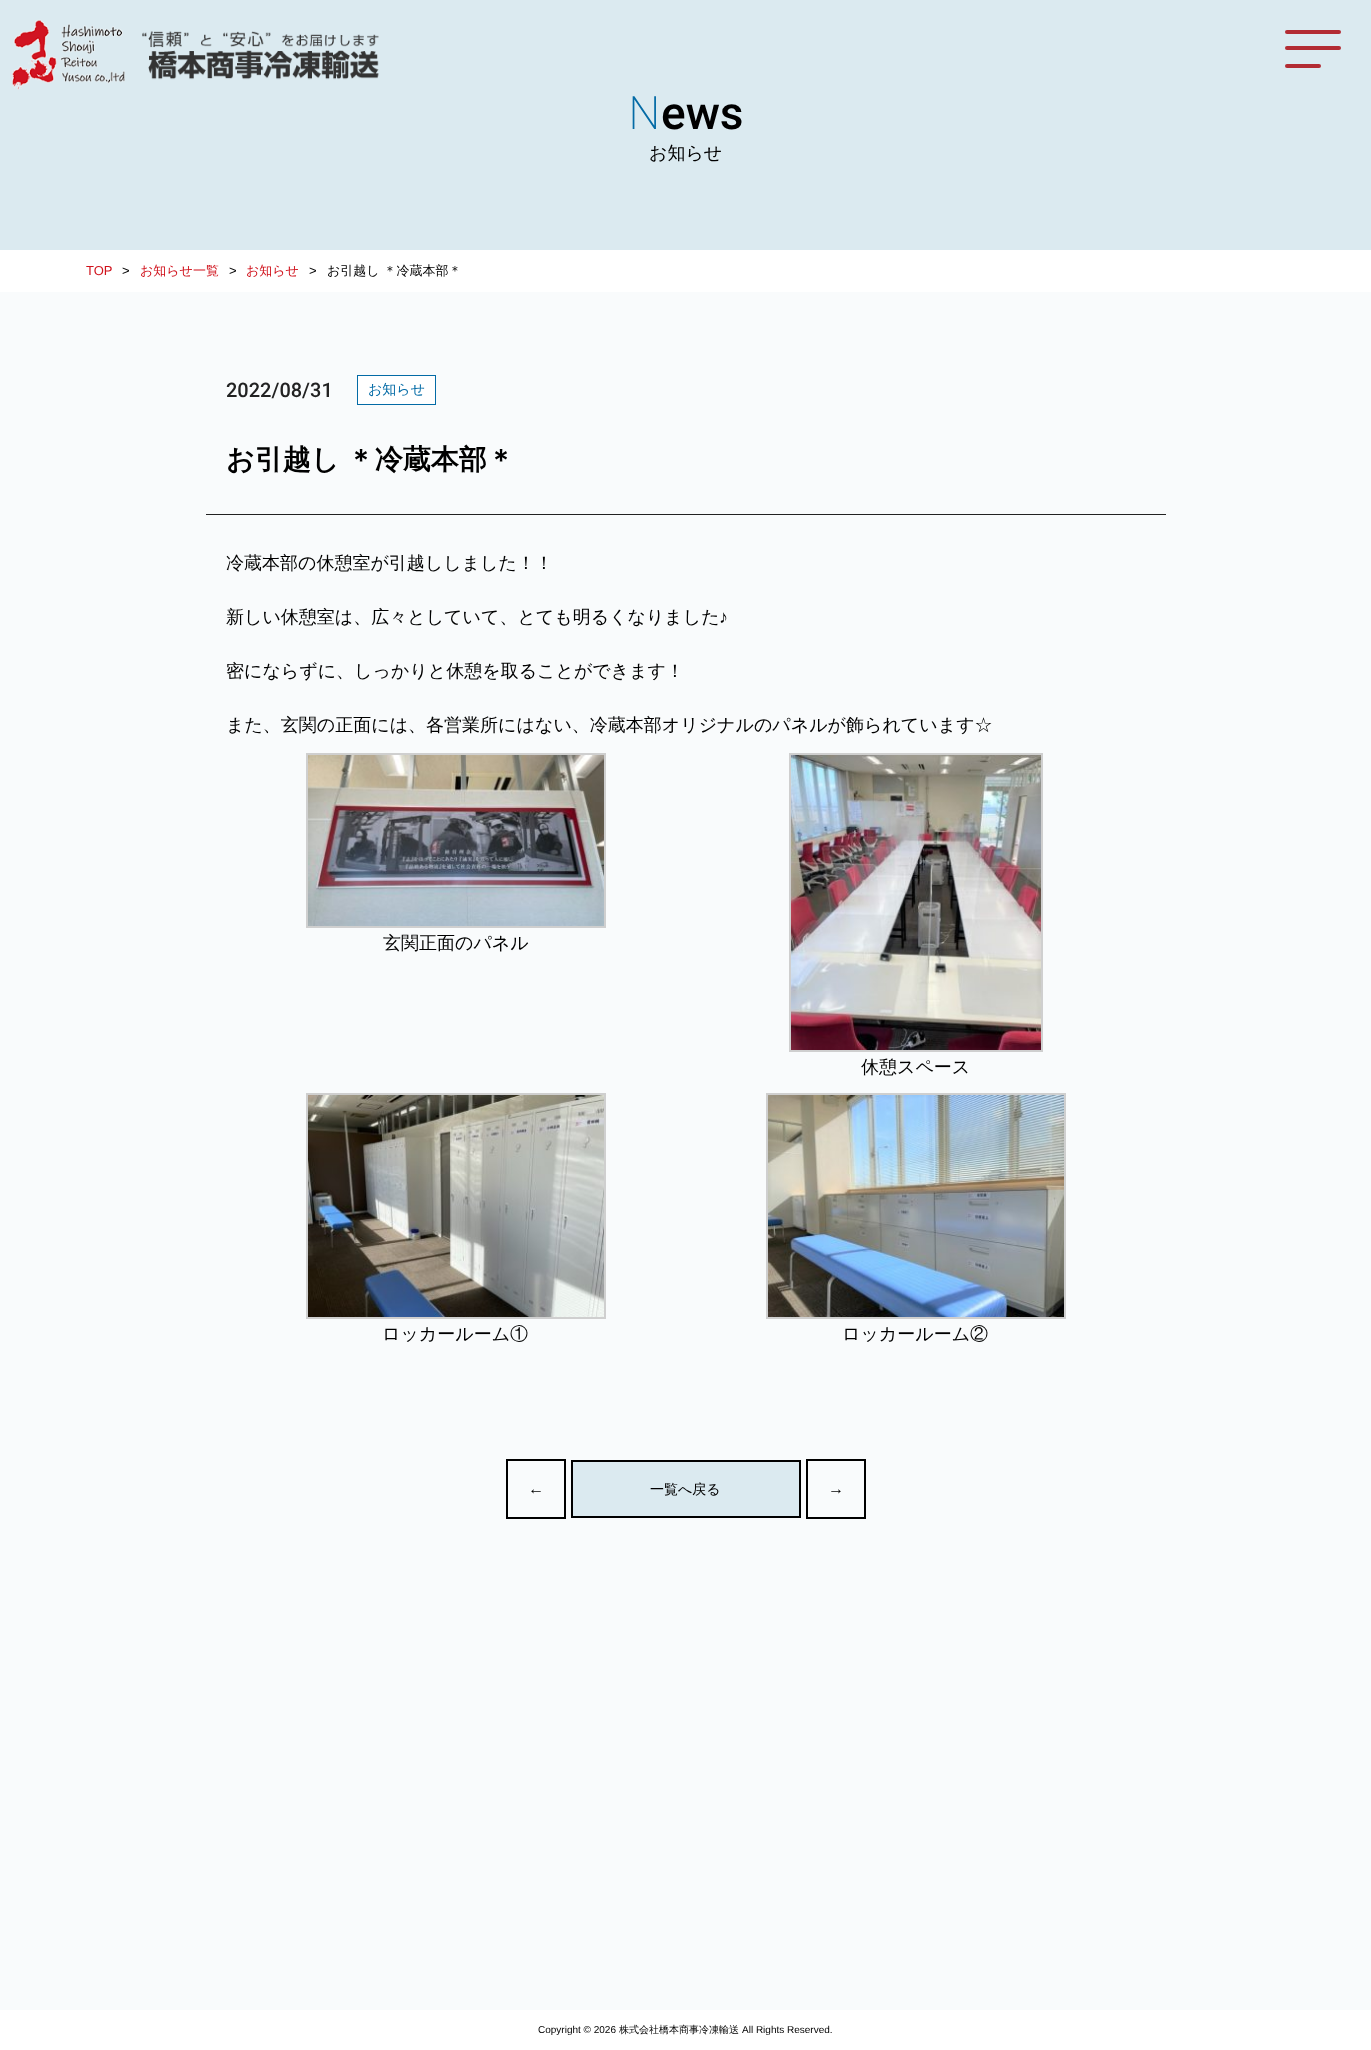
<svg xmlns="http://www.w3.org/2000/svg" xmlns:xlink="http://www.w3.org/1999/xlink" width="1371" height="2050" viewBox="0 0 1371 2050">
<style>
.cls-1{font:200 46px Noto Sans;fill:#046ba6}
.cls-2{font:500 46px Roboto;fill:#000000}
.cls-3{font:500 18px WenQuanYi Zen Hei;fill:#000000}
.cls-4{font:13px Liberation Sans;fill:#d0111b}
.cls-5{font:13px Liberation Sans;fill:#000000}
.cls-6{font:500 13px WenQuanYi Zen Hei;fill:#d0111b}
.cls-7{font:500 13px WenQuanYi Zen Hei;fill:#000000}
.cls-8{font:500 20px Roboto;fill:#222222}
.cls-9{font:500 14px WenQuanYi Zen Hei;fill:#046ba6}
.cls-10{font:bold 28px WenQuanYi Zen Hei;fill:#000000}
.cls-11{font:18px Liberation Sans;fill:#000000}
.cls-12{font:bold 16px Liberation Sans;fill:#000000}
.cls-13{font:500 14px WenQuanYi Zen Hei;fill:#000000}
.cls-14{font:10px Liberation Sans;fill:#000000}
.cls-15{font:500 10px WenQuanYi Zen Hei;fill:#000000}
</style>
<rect width="100%" height="100%" fill="#f9fbfc"/>
<rect fill="#dbeaf0" x="0" y="0" width="1371" height="250"/>
<image xlink:href="image0.png" x="12" y="19" width="367" height="71"/>
<rect fill="#b22c33" x="1285" y="30" width="56" height="4" rx="2"/>
<rect fill="#b22c33" x="1285" y="46" width="56" height="4" rx="2"/>
<rect fill="#b22c33" x="1285" y="64" width="36" height="4" rx="2"/>
<rect fill="#ffffff" x="0" y="250" width="1371" height="42"/>
<rect fill="#222222" x="206" y="514" width="960" height="1"/>
<rect fill="#ffffff" stroke="#046ba6" x="357.5" y="375.5" width="78" height="29"/>
<rect fill="none" stroke="#cfcfcf" stroke-width="2" x="307" y="754" width="298" height="173"/>
<image xlink:href="image1.png" x="308" y="755" width="296" height="171"/>
<rect fill="none" stroke="#cfcfcf" stroke-width="2" x="790" y="754" width="252" height="297"/>
<image xlink:href="image2.png" x="791" y="755" width="250" height="295"/>
<rect fill="none" stroke="#cfcfcf" stroke-width="2" x="307" y="1094" width="298" height="224"/>
<image xlink:href="image3.png" x="308" y="1095" width="296" height="222"/>
<rect fill="none" stroke="#cfcfcf" stroke-width="2" x="767" y="1094" width="298" height="224"/>
<image xlink:href="image4.png" x="768" y="1095" width="296" height="222"/>
<rect fill="none" stroke="#000000" stroke-width="2" x="507" y="1460" width="58" height="58"/>
<rect fill="#dbeaf0" stroke="#000000" stroke-width="2" x="572" y="1461" width="228" height="56"/>
<rect fill="none" stroke="#000000" stroke-width="2" x="807" y="1460" width="58" height="58"/>
<rect fill="#ffffff" x="0" y="2010" width="1371" height="40"/>
<text class="cls-1" x="628" y="129">N</text>
<text class="cls-2" x="661" y="129">ews</text>
<text class="cls-3" x="649" y="159">お知らせ</text>
<text class="cls-4" x="86" y="275">TOP</text>
<text class="cls-5" x="122" y="275">&gt;</text>
<text class="cls-6" x="140" y="275">お知らせ一覧</text>
<text class="cls-5" x="229" y="275">&gt;</text>
<text class="cls-6" x="246" y="275">お知らせ</text>
<text class="cls-5" x="309" y="275">&gt;</text>
<text class="cls-7" x="327" y="275">お引越し ＊冷蔵本部＊</text>
<text class="cls-8" x="226" y="397">2022/08/31</text>
<text class="cls-9" x="368" y="394">お知らせ</text>
<text class="cls-10" x="226" y="469" word-spacing="-1">お引越し ＊冷蔵本部＊</text>
<text class="cls-3" x="226" y="569">冷蔵本部の休憩室が引越ししました！！</text>
<text class="cls-3" x="226" y="623">新しい休憩室は、広々としていて、とても明るくなりました</text>
<text class="cls-11" x="719" y="623">♪</text>
<text class="cls-3" x="226" y="677">密にならずに、しっかりと休憩を取ることができます！</text>
<text class="cls-3" x="226" y="731">また、玄関の正面には、各営業所にはない、冷蔵本部オリジナルのパネルが飾られています☆</text>
<text class="cls-3" x="383" y="949">玄関正面のパネル</text>
<text class="cls-3" x="861" y="1073">休憩スペース</text>
<text class="cls-3" x="382" y="1340">ロッカールーム①</text>
<text class="cls-3" x="842" y="1340">ロッカールーム②</text>
<text class="cls-12" x="528" y="1494">←</text>
<text class="cls-13" x="650" y="1494">一覧へ戻る</text>
<text class="cls-12" x="828" y="1494">→</text>
<text class="cls-14" x="538" y="2033">Copyright © 2026</text>
<text class="cls-15" x="619" y="2033">株式会社橋本商事冷凍輸送</text>
<text class="cls-14" x="742" y="2033">All Rights Reserved.</text>
</svg>
